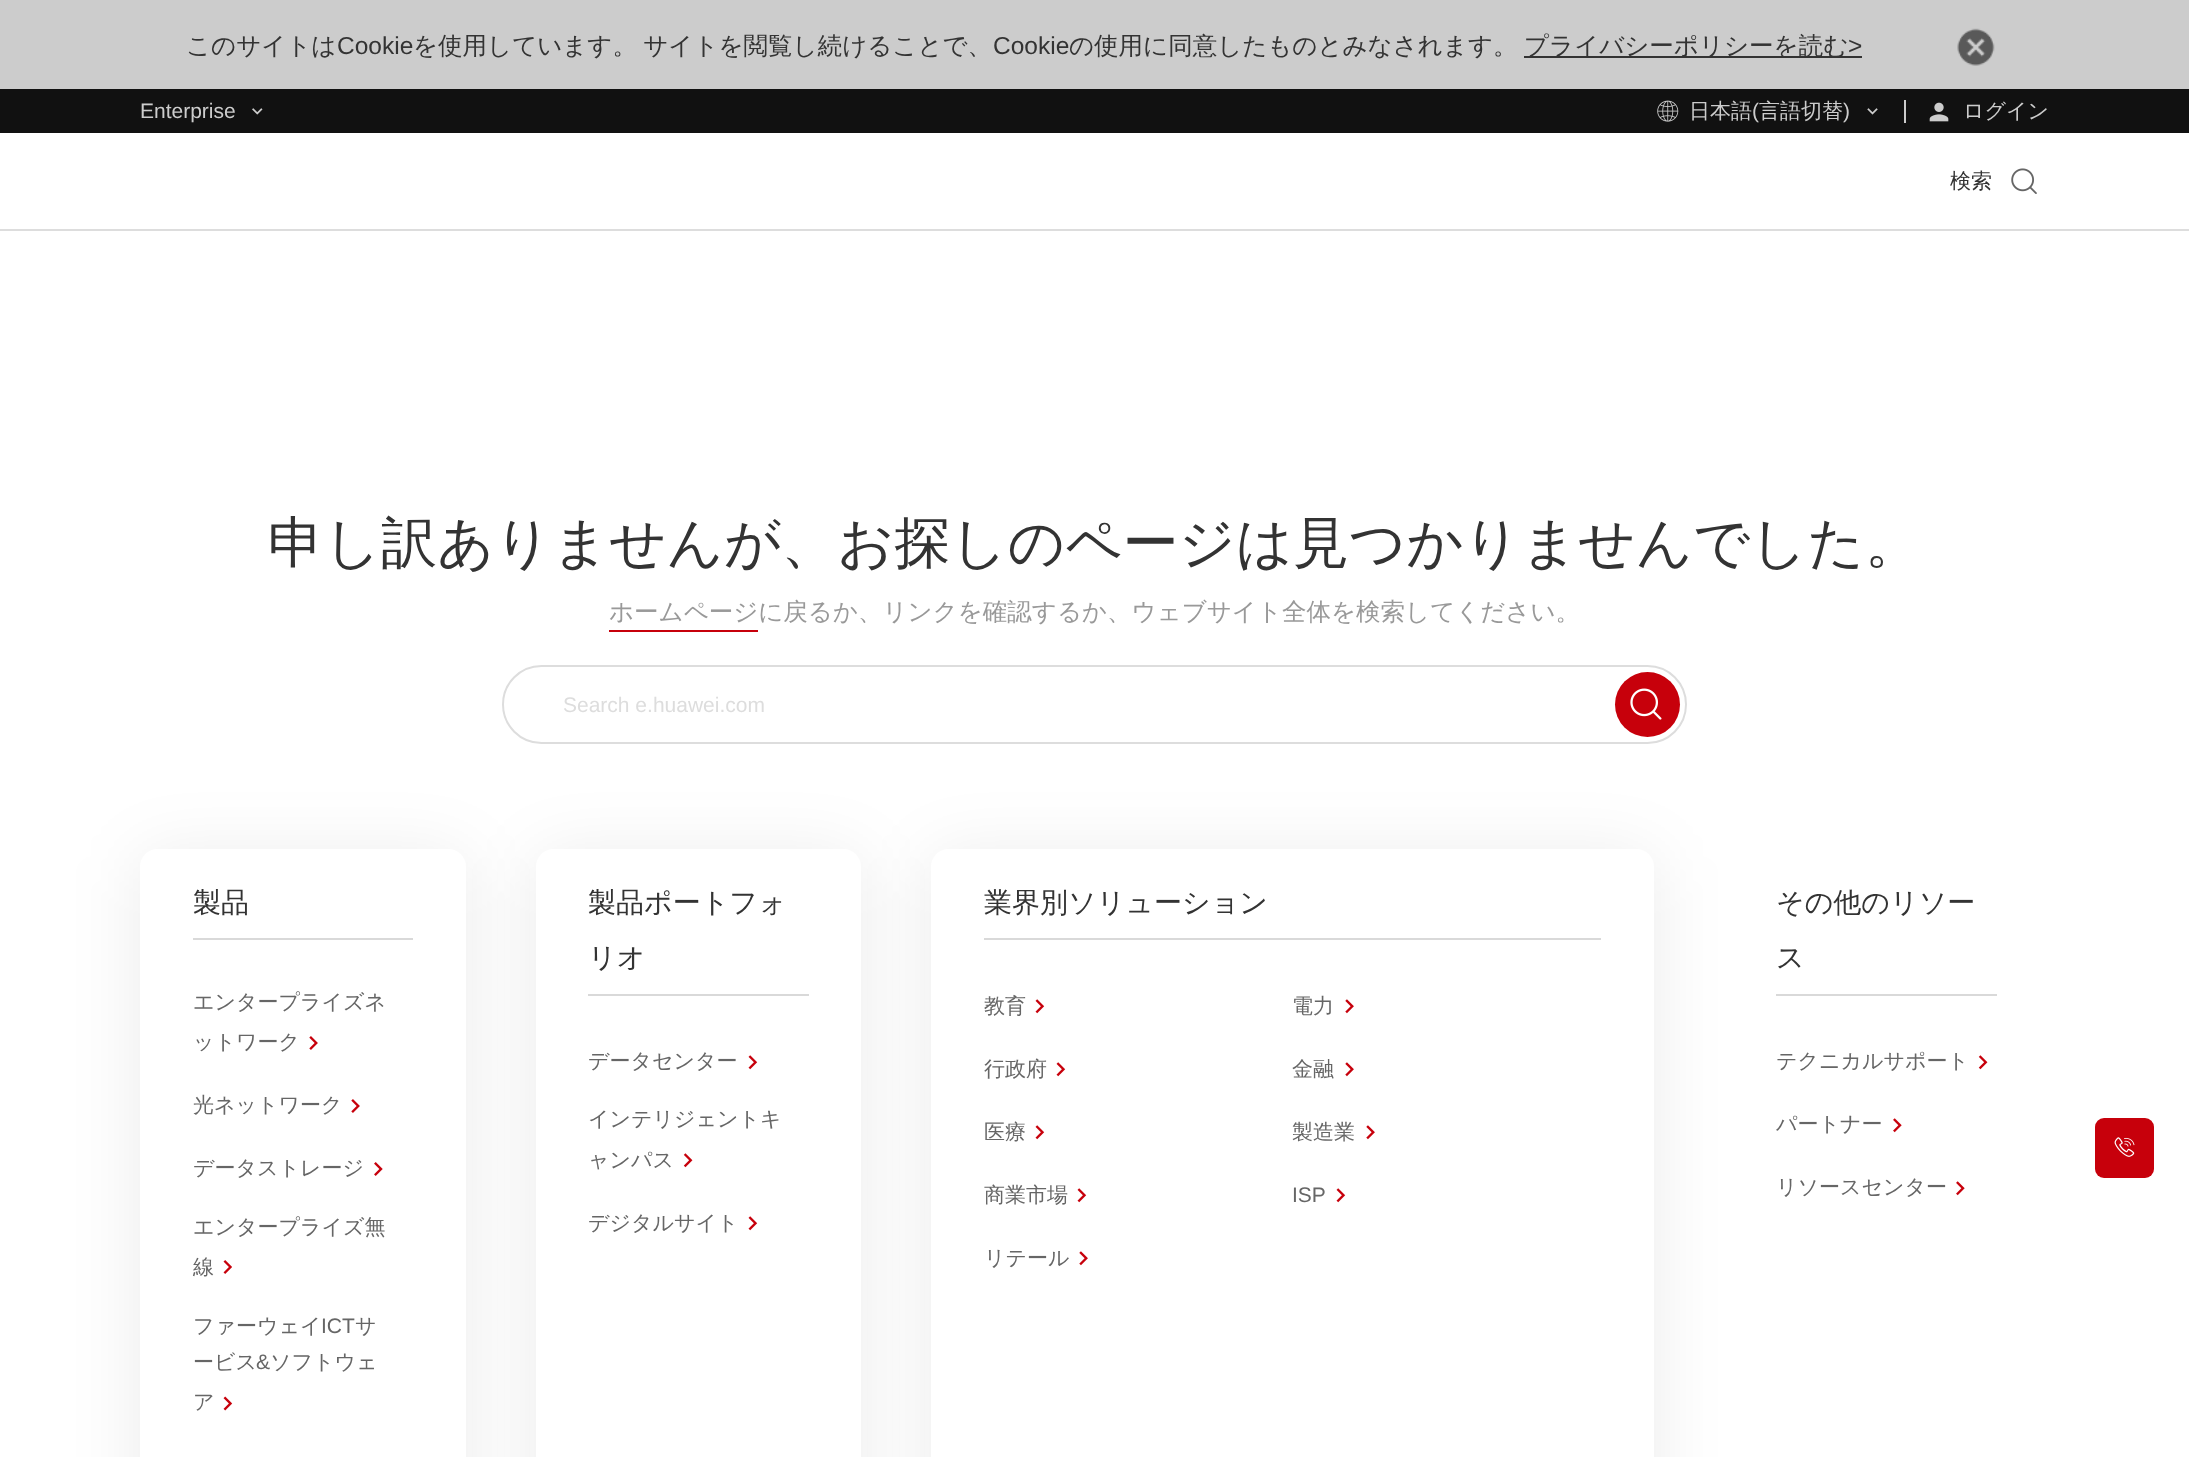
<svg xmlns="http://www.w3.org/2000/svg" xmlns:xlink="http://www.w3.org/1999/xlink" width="2189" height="1457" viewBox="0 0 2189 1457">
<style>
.cls-1{font:500 24.5px WenQuanYi Zen Hei;fill:#333333}
.cls-2{font:24.5px Liberation Sans;fill:#333333}
.cls-3{font:21px Liberation Sans;fill:#cccccc}
.cls-4{font:500 21px WenQuanYi Zen Hei;fill:#cccccc}
.cls-5{font:500 21px WenQuanYi Zen Hei;fill:#333333}
.cls-6{font:500 56px WenQuanYi Zen Hei;fill:#333333}
.cls-7{font:500 24.5px WenQuanYi Zen Hei;fill:#999999}
.cls-8{font:21px Liberation Sans;fill:#dddddd}
.cls-9{font:500 28px WenQuanYi Zen Hei;fill:#333333}
.cls-10{font:500 21px WenQuanYi Zen Hei;fill:#666666}
.cls-11{font:21px Liberation Sans;fill:#666666}
</style>
<defs>
<clipPath id="clip1"><path d="M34 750H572V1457H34ZM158 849H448C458 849 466 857 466 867V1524C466 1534 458 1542 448 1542H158C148 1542 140 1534 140 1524V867C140 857 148 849 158 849Z" clip-rule="evenodd"/></clipPath>
<clipPath id="clip2"><path d="M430 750H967V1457H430ZM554 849H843C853 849 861 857 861 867V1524C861 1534 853 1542 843 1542H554C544 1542 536 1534 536 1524V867C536 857 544 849 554 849Z" clip-rule="evenodd"/></clipPath>
<clipPath id="clip3"><path d="M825 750H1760V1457H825ZM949 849H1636C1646 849 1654 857 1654 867V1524C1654 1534 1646 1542 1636 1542H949C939 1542 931 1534 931 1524V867C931 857 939 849 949 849Z" clip-rule="evenodd"/></clipPath>
</defs>
<rect width="100%" height="100%" fill="#ffffff"/>
<rect fill="#cccccc" x="0" y="0" width="2189" height="89"/>
<rect fill="#333333" x="1524" y="56" width="338" height="2"/>
<image xlink:href="image0.png" x="1957" y="28" width="38" height="38"/>
<rect fill="#111111" x="0" y="89" width="2189" height="44"/>
<image xlink:href="image1.png" x="252" y="108" width="11" height="7"/>
<image xlink:href="image2.png" x="1657" y="100" width="22" height="22"/>
<image xlink:href="image3.png" x="1867" y="108" width="11" height="7"/>
<rect fill="#cccccc" x="1904" y="100" width="2" height="23"/>
<image xlink:href="image4.png" x="1929" y="102" width="20" height="20"/>
<rect fill="#dddddd" x="0" y="229" width="2189" height="2"/>
<image xlink:href="image5.png" x="2011" y="168" width="26" height="26"/>
<rect fill="#c7000b" x="609" y="630" width="149" height="2"/>
<rect fill="none" stroke="#dddddd" stroke-width="2" x="503" y="666" width="1183" height="77" rx="38.5"/>
<circle fill="#c7000b" cx="1647.5" cy="704.5" r="32.5"/>
<image xlink:href="image6.png" x="1630" y="688" width="32" height="32"/>
<g clip-path="url(#clip1)">
<rect fill="#000000" fill-opacity="0.08" filter="blur(35px)" x="140" y="856" width="326" height="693" rx="18"/>
</g>
<rect fill="#ffffff" fill-opacity="0.6" x="140" y="849" width="326" height="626" rx="18"/>
<rect fill="#d9d9d9" x="193" y="938" width="220" height="2"/>
<image xlink:href="image7.png" x="309" y="1036" width="9" height="14"/>
<image xlink:href="image7.png" x="351" y="1099" width="9" height="14"/>
<image xlink:href="image8.png" x="374" y="1162" width="9" height="14"/>
<image xlink:href="image9.png" x="223" y="1260" width="9" height="14"/>
<image xlink:href="image10.png" x="223" y="1396" width="10" height="15"/>
<g clip-path="url(#clip2)">
<rect fill="#000000" fill-opacity="0.08" filter="blur(35px)" x="536" y="856" width="325" height="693" rx="18"/>
</g>
<rect fill="#d9d9d9" x="588" y="994" width="221" height="2"/>
<image xlink:href="image11.png" x="748" y="1055" width="10" height="15"/>
<image xlink:href="image12.png" x="683" y="1153" width="10" height="15"/>
<image xlink:href="image11.png" x="748" y="1216" width="10" height="15"/>
<g clip-path="url(#clip3)">
<rect fill="#000000" fill-opacity="0.08" filter="blur(35px)" x="931" y="856" width="723" height="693" rx="18"/>
</g>
<rect fill="#d9d9d9" x="984" y="938" width="617" height="2"/>
<image xlink:href="image11.png" x="1035" y="999" width="10" height="15"/>
<image xlink:href="image13.png" x="1345" y="999" width="9" height="15"/>
<image xlink:href="image11.png" x="1056" y="1062" width="10" height="15"/>
<image xlink:href="image13.png" x="1345" y="1062" width="9" height="15"/>
<image xlink:href="image11.png" x="1035" y="1125" width="10" height="15"/>
<image xlink:href="image13.png" x="1366" y="1125" width="9" height="15"/>
<image xlink:href="image11.png" x="1077" y="1188" width="10" height="15"/>
<image xlink:href="image11.png" x="1336" y="1188" width="10" height="15"/>
<image xlink:href="image13.png" x="1079" y="1251" width="9" height="15"/>
<rect fill="#d9d9d9" x="1776" y="994" width="221" height="2"/>
<image xlink:href="image12.png" x="1978" y="1055" width="10" height="15"/>
<image xlink:href="image14.png" x="1893" y="1118" width="9" height="15"/>
<image xlink:href="image14.png" x="1956" y="1181" width="9" height="15"/>
<rect fill="#c7000b" x="2095" y="1118" width="59" height="60" rx="9"/>
<image xlink:href="image15.png" x="2114" y="1137" width="21" height="20"/>
<text class="cls-1" x="186" y="54">このサイトは</text>
<text class="cls-2" x="337" y="54">Cookie</text>
<text class="cls-1" x="413" y="54" word-spacing="-1">を使用しています。 サイトを閲覧し続けることで、</text>
<text class="cls-2" x="993" y="54">Cookie</text>
<text class="cls-1" x="1069" y="54">の使用に同意したものとみなされます。</text>
<text class="cls-1" x="1524" y="54">プライバシーポリシーを読む</text>
<text class="cls-2" x="1848" y="54">&gt;</text>
<text class="cls-3" x="140" y="118">Enterprise</text>
<text class="cls-4" x="1689" y="118">日本語</text>
<text class="cls-3" x="1752" y="118">(</text>
<text class="cls-4" x="1759" y="118">言語切替</text>
<text class="cls-3" x="1843" y="118">)</text>
<text class="cls-4" x="1963" y="118">ログイン</text>
<text class="cls-5" x="1950" y="188">検索</text>
<text class="cls-6" x="268" y="562">申し訳ありませんが、お探しのページは見つかりませんでした。</text>
<text class="cls-7" x="609" y="620">ホームページに戻るか、リンクを確認するか、ウェブサイト全体を検索してください。</text>
<text class="cls-8" x="563" y="712">Search e.huawei.com</text>
<text class="cls-9" x="193" y="912">製品</text>
<text class="cls-10"><tspan x="193" y="1009">エンタープライズネ</tspan><tspan x="193" y="1049">ットワーク</tspan></text>
<text class="cls-10" x="193" y="1112">光ネットワーク</text>
<text class="cls-10" x="193" y="1175">データストレージ</text>
<text class="cls-10"><tspan x="193" y="1234">エンタープライズ無</tspan><tspan x="193" y="1274">線</tspan></text>
<text class="cls-10" x="193" y="1333">ファーウェイ</text>
<text class="cls-11" x="321" y="1333">ICT</text>
<text class="cls-10" x="355" y="1333">サ</text>
<text class="cls-10" x="193" y="1369">ービス</text>
<text class="cls-11" x="256" y="1369">&amp;</text>
<text class="cls-10" x="270" y="1369">ソフトウェ</text>
<text class="cls-10" x="193" y="1409">ア</text>
<text class="cls-9"><tspan x="588" y="912">製品ポートフォ</tspan><tspan x="588" y="967">リオ</tspan></text>
<text class="cls-10" x="588" y="1068">データセンター</text>
<text class="cls-10"><tspan x="588" y="1126">インテリジェントキ</tspan><tspan x="588" y="1167">ャンパス</tspan></text>
<text class="cls-10" x="588" y="1230">デジタルサイト</text>
<text class="cls-9" x="984" y="912">業界別ソリューション</text>
<text class="cls-10" x="984" y="1013">教育</text>
<text class="cls-10" x="1292" y="1013">電力</text>
<text class="cls-10" x="984" y="1076">行政府</text>
<text class="cls-10" x="1292" y="1076">金融</text>
<text class="cls-10" x="984" y="1139">医療</text>
<text class="cls-10" x="1292" y="1139">製造業</text>
<text class="cls-10" x="984" y="1202">商業市場</text>
<text class="cls-11" x="1292" y="1202">ISP</text>
<text class="cls-10" x="984" y="1265">リテール</text>
<text class="cls-9"><tspan x="1776" y="912">その他のリソー</tspan><tspan x="1776" y="967">ス</tspan></text>
<text class="cls-10" x="1776" y="1068">テクニカルサポート</text>
<text class="cls-10" x="1776" y="1131">パートナー</text>
<text class="cls-10" x="1776" y="1194">リソースセンター</text>
</svg>
